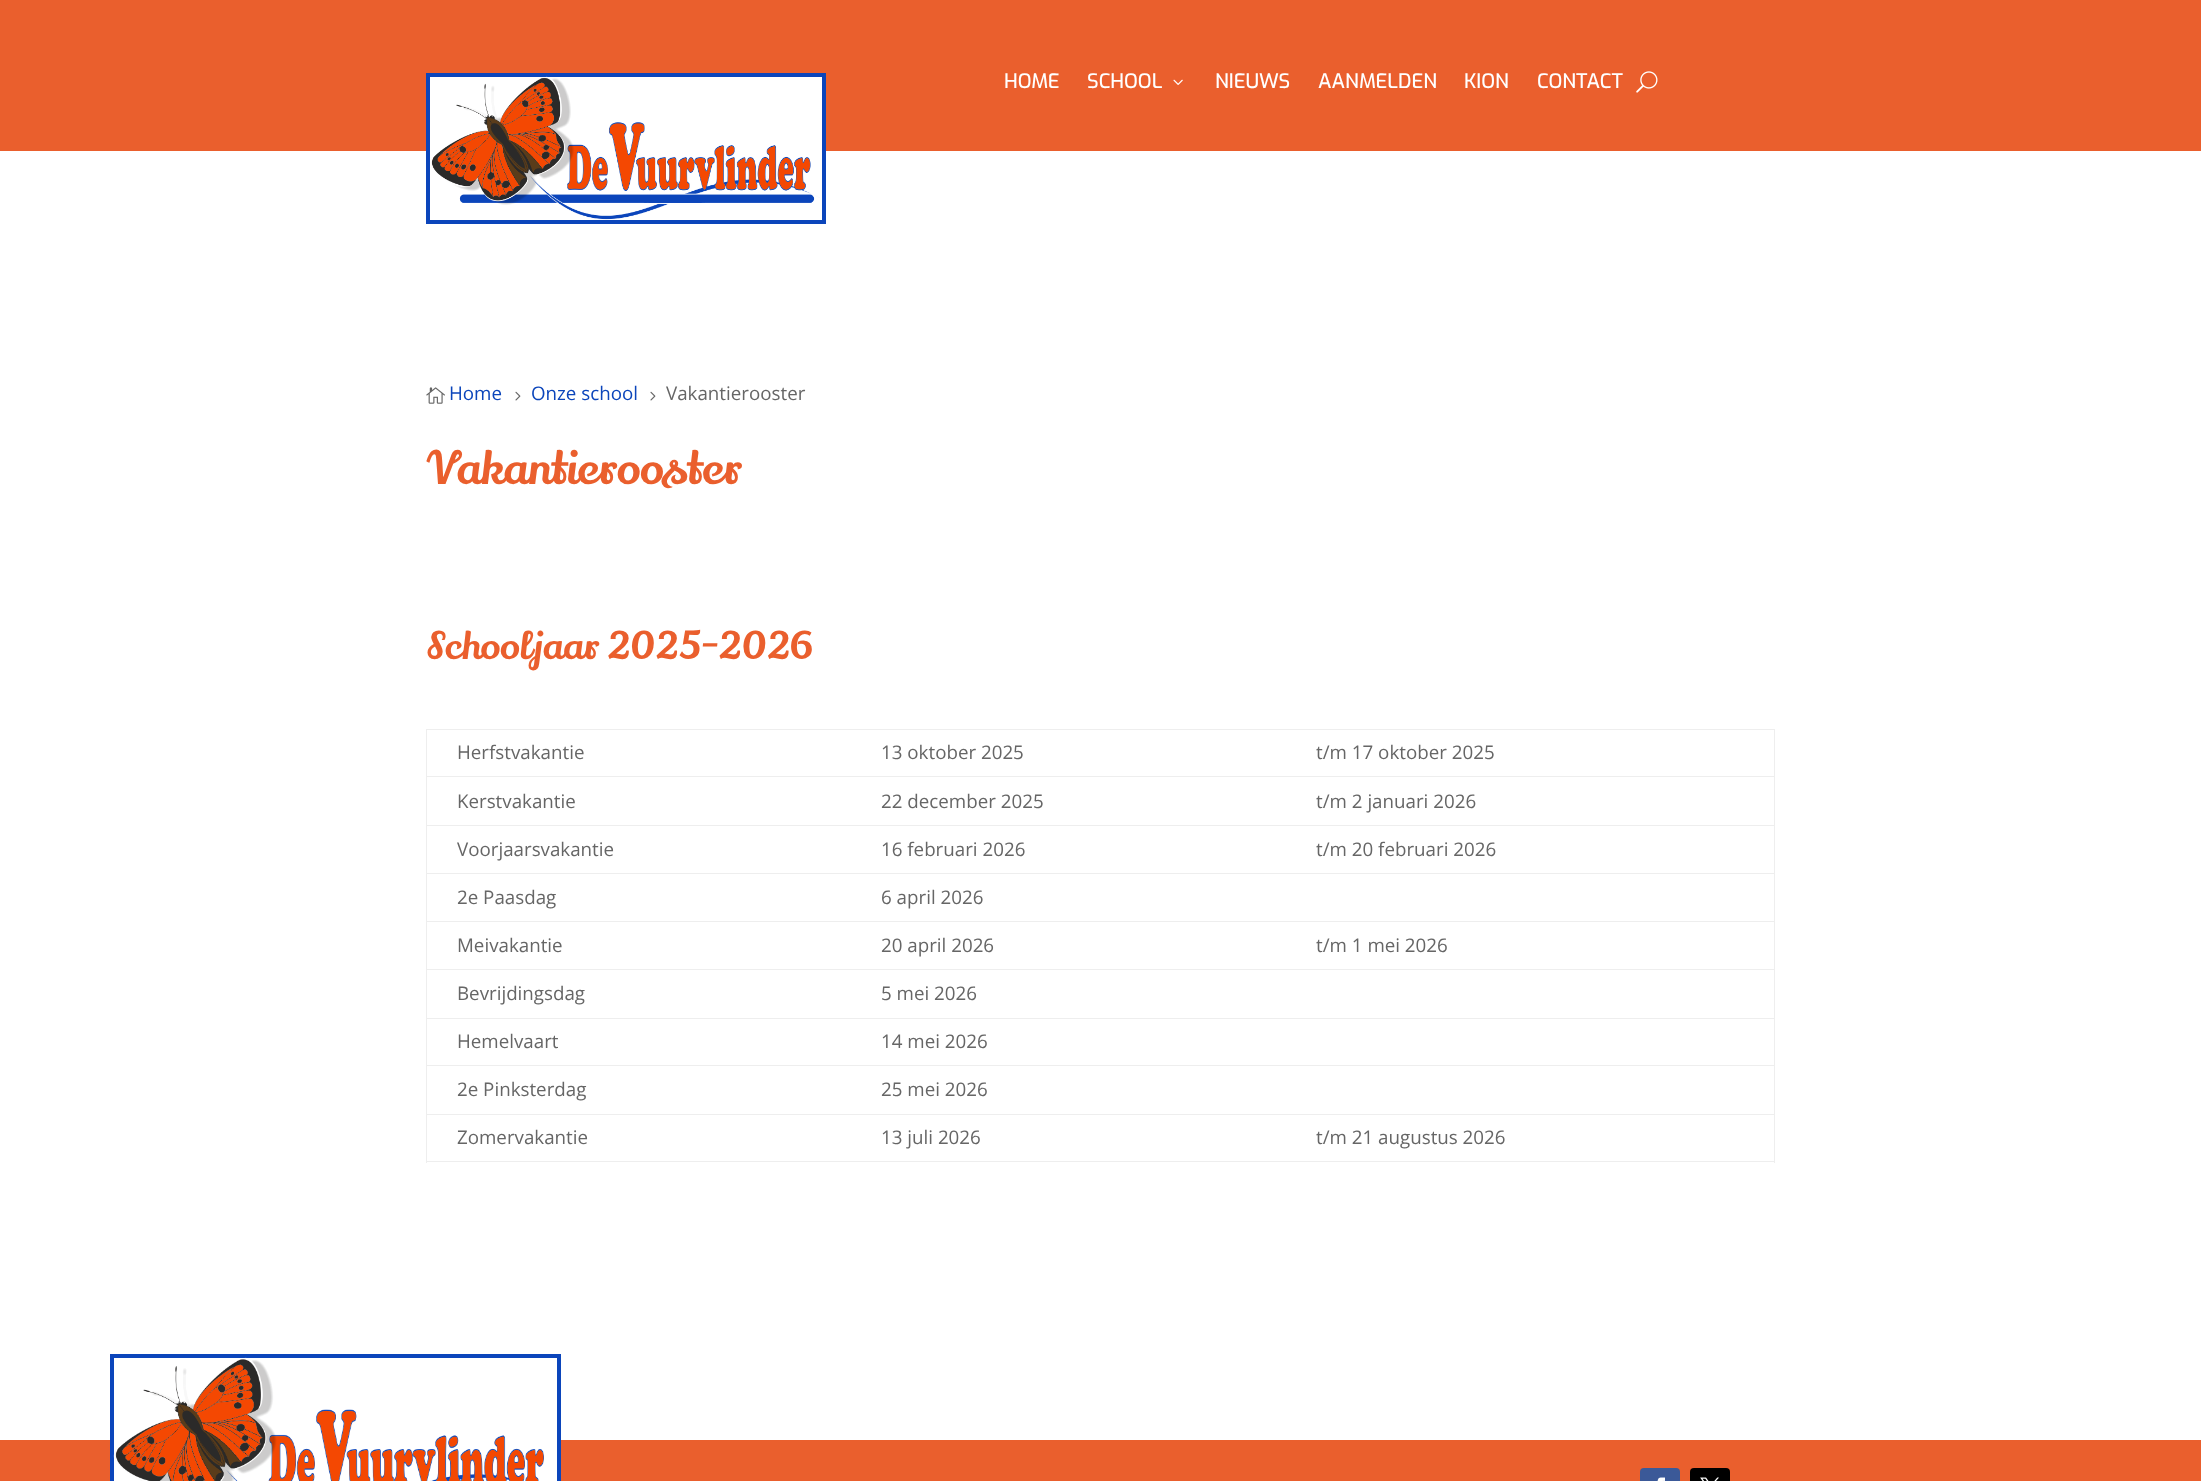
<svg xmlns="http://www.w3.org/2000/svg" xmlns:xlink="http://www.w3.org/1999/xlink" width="2201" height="1481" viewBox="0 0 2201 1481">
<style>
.cls-1{font:500 20px Exo;fill:#ffffff}
.cls-2{font:18.75px Open Sans;fill:#0b45bb}
.cls-3{font:18.75px Open Sans;fill:#666666}
.cls-4{font:45px Lily Script One;fill:#ea5f2d}
.cls-5{font:37.5px Lily Script One;fill:#ea5f2d}
</style>
<rect width="100%" height="100%" fill="#ffffff"/>
<rect fill="#ea5f2d" x="0" y="0" width="2201" height="151"/>
<rect fill="#ffffff" x="430" y="77" width="392" height="74"/>
<rect fill="none" stroke="#0b45bb" stroke-width="4" x="428" y="75" width="396" height="147"/>
<image xlink:href="image0.png" x="431" y="76" width="389" height="144"/>
<image xlink:href="image1.png" x="1173" y="79" width="10" height="6"/>
<image xlink:href="image2.png" x="1636" y="71" width="22" height="22"/>
<image xlink:href="image3.png" x="426" y="387" width="19" height="17"/>
<image xlink:href="image4.png" x="515" y="391" width="6" height="10"/>
<image xlink:href="image4.png" x="650" y="391" width="6" height="10"/>
<rect fill="#eeeeee" x="426" y="729" width="1349" height="1"/>
<rect fill="#eeeeee" x="1774" y="729" width="1" height="434"/>
<rect fill="#eeeeee" x="426" y="1161" width="1349" height="1"/>
<rect fill="#eeeeee" x="426" y="729" width="1" height="434"/>
<rect fill="#eeeeee" x="426" y="776" width="1349" height="1"/>
<rect fill="#eeeeee" x="426" y="825" width="1349" height="1"/>
<rect fill="#eeeeee" x="426" y="873" width="1349" height="1"/>
<rect fill="#eeeeee" x="426" y="921" width="1349" height="1"/>
<rect fill="#eeeeee" x="426" y="969" width="1349" height="1"/>
<rect fill="#eeeeee" x="426" y="1018" width="1349" height="1"/>
<rect fill="#eeeeee" x="426" y="1065" width="1349" height="1"/>
<rect fill="#eeeeee" x="426" y="1114" width="1349" height="1"/>
<rect fill="#ea5f2d" x="0" y="1440" width="2201" height="41"/>
<rect fill="#ffffff" x="114" y="1440" width="443" height="41"/>
<rect fill="none" stroke="#0b45bb" stroke-width="4" x="112" y="1356" width="447" height="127"/>
<image xlink:href="image5.png" x="113" y="1357" width="431" height="124"/>
<rect fill="#3b5998" x="1640" y="1468" width="40" height="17" rx="4"/>
<image xlink:href="image6.png" x="1657" y="1477" width="8" height="4"/>
<rect fill="#000000" x="1690" y="1468" width="40" height="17" rx="4"/>
<image xlink:href="image7.png" x="1700" y="1477" width="19" height="4"/>
<text class="cls-1" x="1004" y="88">HOME</text>
<text class="cls-1" x="1087" y="88">SCHOOL</text>
<text class="cls-1" x="1215" y="88">NIEUWS</text>
<text class="cls-1" x="1318" y="88">AANMELDEN</text>
<text class="cls-1" x="1464" y="88">KION</text>
<text class="cls-1" x="1537" y="88">CONTACT</text>
<text class="cls-2" x="449" y="400">Home</text>
<text class="cls-2" x="531" y="400">Onze school</text>
<text class="cls-3" x="666" y="400">Vakantierooster</text>
<text class="cls-4" x="426" y="484">Vakantierooster</text>
<text class="cls-5" x="426" y="659">Schooljaar 2025-2026</text>
<text class="cls-3" x="457" y="759">Herfstvakantie</text>
<text class="cls-3" x="881" y="759">13 oktober 2025</text>
<text class="cls-3" x="1316" y="759">t/m 17 oktober 2025</text>
<text class="cls-3" x="457" y="808">Kerstvakantie</text>
<text class="cls-3" x="881" y="808">22 december 2025</text>
<text class="cls-3" x="1316" y="808">t/m 2 januari 2026</text>
<text class="cls-3" x="457" y="856">Voorjaarsvakantie</text>
<text class="cls-3" x="881" y="856">16 februari 2026</text>
<text class="cls-3" x="1316" y="856">t/m 20 februari 2026</text>
<text class="cls-3" x="457" y="904">2e Paasdag</text>
<text class="cls-3" x="881" y="904">6 april 2026</text>
<text class="cls-3" x="457" y="952">Meivakantie</text>
<text class="cls-3" x="881" y="952">20 april 2026</text>
<text class="cls-3" x="1316" y="952">t/m 1 mei 2026</text>
<text class="cls-3" x="457" y="1000">Bevrijdingsdag</text>
<text class="cls-3" x="881" y="1000">5 mei 2026</text>
<text class="cls-3" x="457" y="1048">Hemelvaart</text>
<text class="cls-3" x="881" y="1048">14 mei 2026</text>
<text class="cls-3" x="457" y="1096">2e Pinksterdag</text>
<text class="cls-3" x="881" y="1096">25 mei 2026</text>
<text class="cls-3" x="457" y="1144">Zomervakantie</text>
<text class="cls-3" x="881" y="1144">13 juli 2026</text>
<text class="cls-3" x="1316" y="1144">t/m 21 augustus 2026</text>
</svg>
